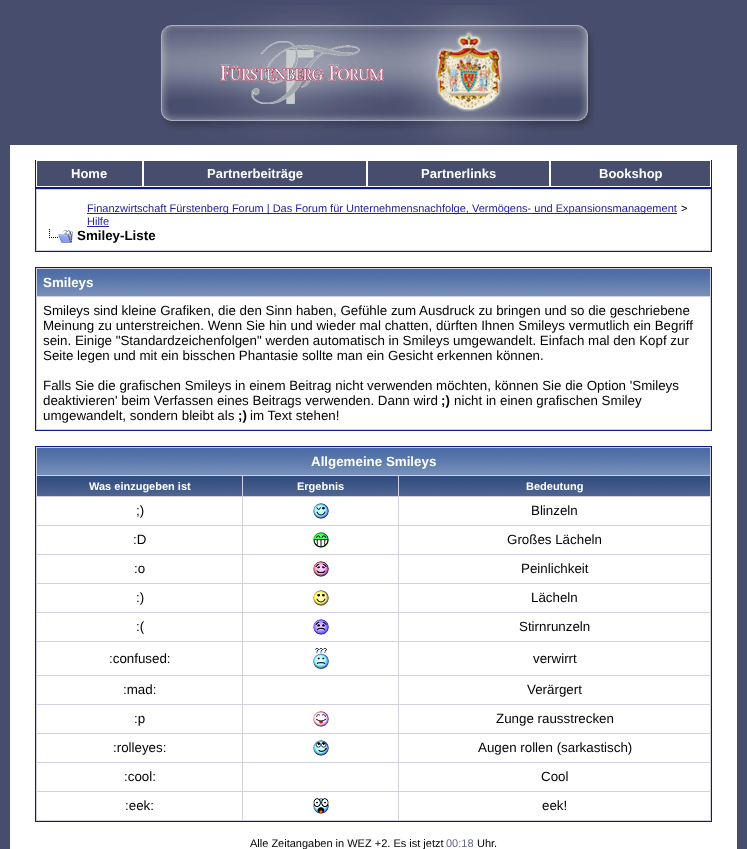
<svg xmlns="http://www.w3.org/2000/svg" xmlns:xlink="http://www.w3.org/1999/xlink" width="747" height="849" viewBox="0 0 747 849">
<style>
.cls-1{font:bold 13px Liberation Sans;fill:#ffffff}
.cls-2{font:11px Liberation Sans;fill:#22229c}
.cls-3{font:11px Liberation Sans;fill:#000000}
.cls-4{font:bold 13.35px Liberation Sans;fill:#000000}
.cls-5{font:bold 13.35px Liberation Sans;fill:#ffffff}
.cls-6{font:13.35px Liberation Sans;fill:#000000}
.cls-7{font:bold 11px Liberation Sans;fill:#ffffff}
.cls-8{font:11px Liberation Sans;fill:#666686}
</style>
<rect width="100%" height="100%" fill="#474e6d"/>
<image xlink:href="image0.png" x="161" y="5" width="433" height="140"/>
<rect fill="#ffffff" x="10" y="145" width="727" height="704"/>
<rect fill="#0b198c" x="711" y="160" width="1" height="28"/>
<rect fill="#0b198c" x="35" y="187" width="677" height="1"/>
<rect fill="#0b198c" x="35" y="160" width="1" height="28"/>
<rect fill="#474e6d" x="37" y="161" width="105" height="25"/>
<rect fill="#474e6d" x="144" y="161" width="222" height="25"/>
<rect fill="#474e6d" x="368" y="161" width="181" height="25"/>
<rect fill="#474e6d" x="551" y="161" width="159" height="25"/>
<rect fill="#d1d1e1" stroke="#0b198c" x="35.5" y="188.5" width="676" height="63"/>
<rect fill="#ffffff" x="37" y="190" width="673" height="60"/>
<rect fill="#22229c" x="87" y="213" width="590" height="1"/>
<rect fill="#22229c" x="87" y="226" width="22" height="1"/>
<image xlink:href="image1.png" x="49" y="229" width="24" height="14"/>
<rect fill="#d1d1e1" stroke="#0b198c" x="35.5" y="267.5" width="676" height="163"/>
<image xlink:href="image2.png" x="37" y="269" width="673" height="27"/>
<rect fill="#ffffff" x="37" y="297" width="673" height="132"/>
<rect fill="#d1d1e1" stroke="#0b198c" x="35.5" y="446.5" width="676" height="375"/>
<image xlink:href="image2.png" x="37" y="448" width="673" height="27"/>
<image xlink:href="image3.png" x="37" y="476" width="205" height="20"/>
<image xlink:href="image4.png" x="243" y="476" width="155" height="20"/>
<image xlink:href="image5.png" x="399" y="476" width="311" height="20"/>
<rect fill="#ffffff" x="37" y="497" width="205" height="28"/>
<rect fill="#ffffff" x="243" y="497" width="155" height="28"/>
<image xlink:href="image6.png" x="313" y="503" width="16" height="16"/>
<rect fill="#ffffff" x="399" y="497" width="311" height="28"/>
<rect fill="#ffffff" x="37" y="526" width="205" height="28"/>
<rect fill="#ffffff" x="243" y="526" width="155" height="28"/>
<image xlink:href="image7.png" x="313" y="532" width="16" height="16"/>
<rect fill="#ffffff" x="399" y="526" width="311" height="28"/>
<rect fill="#ffffff" x="37" y="555" width="205" height="28"/>
<rect fill="#ffffff" x="243" y="555" width="155" height="28"/>
<image xlink:href="image8.png" x="313" y="561" width="16" height="16"/>
<rect fill="#ffffff" x="399" y="555" width="311" height="28"/>
<rect fill="#ffffff" x="37" y="584" width="205" height="28"/>
<rect fill="#ffffff" x="243" y="584" width="155" height="28"/>
<image xlink:href="image9.png" x="313" y="590" width="16" height="16"/>
<rect fill="#ffffff" x="399" y="584" width="311" height="28"/>
<rect fill="#ffffff" x="37" y="613" width="205" height="28"/>
<rect fill="#ffffff" x="243" y="613" width="155" height="28"/>
<image xlink:href="image10.png" x="313" y="619" width="16" height="16"/>
<rect fill="#ffffff" x="399" y="613" width="311" height="28"/>
<rect fill="#ffffff" x="37" y="642" width="205" height="33"/>
<rect fill="#ffffff" x="243" y="642" width="155" height="33"/>
<image xlink:href="image11.png" x="313" y="648" width="16" height="21"/>
<rect fill="#ffffff" x="399" y="642" width="311" height="33"/>
<rect fill="#ffffff" x="37" y="676" width="205" height="28"/>
<rect fill="#ffffff" x="243" y="676" width="155" height="28"/>
<rect fill="#ffffff" x="399" y="676" width="311" height="28"/>
<rect fill="#ffffff" x="37" y="705" width="205" height="28"/>
<rect fill="#ffffff" x="243" y="705" width="155" height="28"/>
<image xlink:href="image12.png" x="313" y="711" width="16" height="16"/>
<rect fill="#ffffff" x="399" y="705" width="311" height="28"/>
<rect fill="#ffffff" x="37" y="734" width="205" height="28"/>
<rect fill="#ffffff" x="243" y="734" width="155" height="28"/>
<image xlink:href="image13.png" x="313" y="740" width="16" height="16"/>
<rect fill="#ffffff" x="399" y="734" width="311" height="28"/>
<rect fill="#ffffff" x="37" y="763" width="205" height="28"/>
<rect fill="#ffffff" x="243" y="763" width="155" height="28"/>
<rect fill="#ffffff" x="399" y="763" width="311" height="28"/>
<rect fill="#ffffff" x="37" y="792" width="205" height="28"/>
<rect fill="#ffffff" x="243" y="792" width="155" height="28"/>
<image xlink:href="image14.png" x="313" y="798" width="16" height="16"/>
<rect fill="#ffffff" x="399" y="792" width="311" height="28"/>
<text class="cls-1" x="71" y="178">Home</text>
<text class="cls-1" x="207" y="178">Partnerbeiträge</text>
<text class="cls-1" x="421" y="178">Partnerlinks</text>
<text class="cls-1" x="599" y="178">Bookshop</text>
<text class="cls-2" x="87" y="212">Finanzwirtschaft Fürstenberg Forum | Das Forum für Unternehmensnachfolge, Vermögens- und Expansionsmanagement</text>
<text class="cls-3" x="681" y="212">&gt;</text>
<text class="cls-2" x="87" y="225">Hilfe</text>
<text class="cls-4" x="77" y="240">Smiley-Liste</text>
<text class="cls-5" x="43" y="287">Smileys</text>
<text class="cls-6"><tspan x="43" y="315">Smileys sind kleine Grafiken, die den Sinn haben, Gefühle zum Ausdruck zu bringen und so die geschriebene</tspan><tspan x="43" y="330">Meinung zu unterstreichen. Wenn Sie hin und wieder mal chatten, dürften Ihnen Smileys vermutlich ein Begriff</tspan><tspan x="43" y="345">sein. Einige "Standardzeichenfolgen" werden automatisch in Smileys umgewandelt. Einfach mal den Kopf zur</tspan><tspan x="43" y="360">Seite legen und mit ein bisschen Phantasie sollte man ein Gesicht erkennen können.</tspan></text>
<text class="cls-6"><tspan x="43" y="390">Falls Sie die grafischen Smileys in einem Beitrag nicht verwenden möchten, können Sie die Option 'Smileys</tspan><tspan x="43" y="405">deaktivieren' beim Verfassen eines Beitrags verwenden. Dann wird</tspan></text>
<text class="cls-4" x="441" y="405">;)</text>
<text class="cls-6" x="454" y="405">nicht in einen grafischen Smiley</text>
<text class="cls-6" x="43" y="420">umgewandelt, sondern bleibt als</text>
<text class="cls-4" x="238" y="420">;)</text>
<text class="cls-6" x="250" y="420">im Text stehen!</text>
<text class="cls-5" x="311" y="466">Allgemeine Smileys</text>
<text class="cls-7" x="89" y="490">Was einzugeben ist</text>
<text class="cls-7" x="297" y="490">Ergebnis</text>
<text class="cls-7" x="526" y="490">Bedeutung</text>
<text class="cls-6" x="136" y="515">;)</text>
<text class="cls-6" x="531" y="515">Blinzeln</text>
<text class="cls-6" x="133" y="544">:D</text>
<text class="cls-6" x="507" y="544">Großes Lächeln</text>
<text class="cls-6" x="134" y="573">:o</text>
<text class="cls-6" x="521" y="573">Peinlichkeit</text>
<text class="cls-6" x="136" y="602">:)</text>
<text class="cls-6" x="531" y="602">Lächeln</text>
<text class="cls-6" x="136" y="631">:(</text>
<text class="cls-6" x="519" y="631">Stirnrunzeln</text>
<text class="cls-6" x="109" y="663">:confused:</text>
<text class="cls-6" x="533" y="663">verwirrt</text>
<text class="cls-6" x="123" y="694">:mad:</text>
<text class="cls-6" x="527" y="694">Verärgert</text>
<text class="cls-6" x="134" y="723">:p</text>
<text class="cls-6" x="496" y="723">Zunge rausstrecken</text>
<text class="cls-6" x="113" y="752">:rolleyes:</text>
<text class="cls-6" x="478" y="752">Augen rollen (sarkastisch)</text>
<text class="cls-6" x="124" y="781">:cool:</text>
<text class="cls-6" x="541" y="781">Cool</text>
<text class="cls-6" x="125" y="810">:eek:</text>
<text class="cls-6" x="542" y="810">eek!</text>
<text class="cls-3" x="250" y="847">Alle Zeitangaben in WEZ +2. Es ist jetzt</text>
<text class="cls-8" x="446" y="847">00:18</text>
<text class="cls-3" x="477" y="847">Uhr.</text>
</svg>
